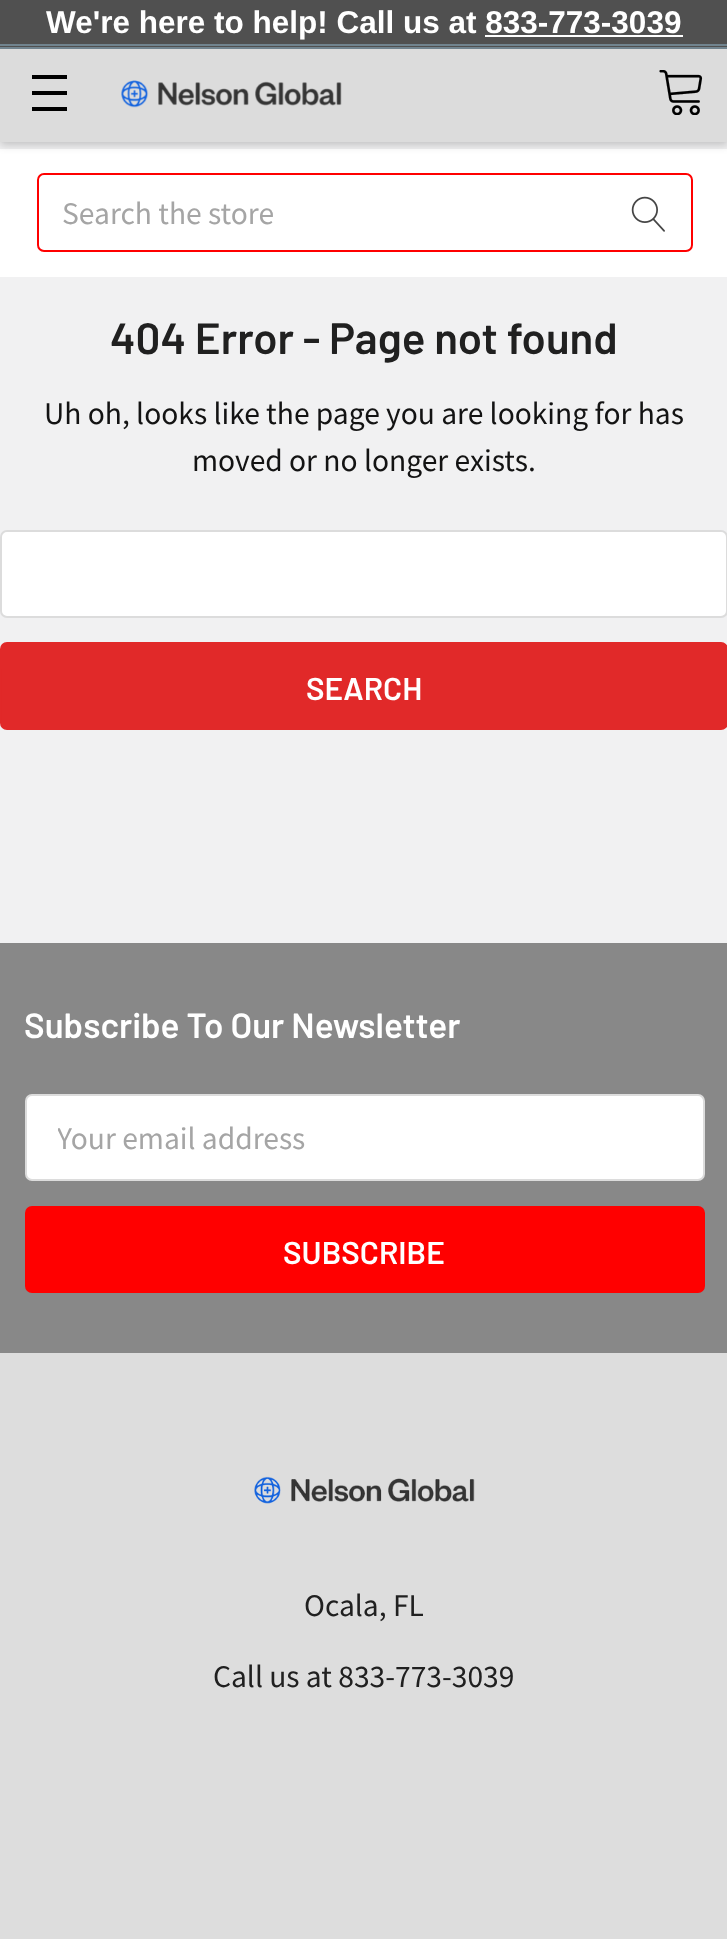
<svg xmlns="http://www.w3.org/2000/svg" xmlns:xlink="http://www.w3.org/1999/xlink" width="727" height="1939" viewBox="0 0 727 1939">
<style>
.cls-1{font:bold 31.5px Liberation Sans;fill:#ffffff}
.cls-2{font:31.5px Source Sans Pro;fill:#a5a5a5}
.cls-3{font:600 43.75px Barlow;fill:#202020}
.cls-4{font:31.5px Source Sans Pro;fill:#131313}
.cls-5{font:600 31.5px Barlow;fill:#ffffff}
.cls-6{font:600 35px Barlow;fill:#ffffff}
.cls-7{font:31.5px Source Sans Pro;fill:#202020}
</style>
<defs>
<clipPath id="clip1"><rect x="58" y="1118" width="614" height="41"/></clipPath>
</defs>
<rect width="100%" height="100%" fill="#f1f1f2"/>
<rect fill="#ffffff" x="0" y="149" width="727" height="128"/>
<rect fill="#000000" fill-opacity="0.2" filter="blur(4.5px)" x="0" y="4" width="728" height="141"/>
<rect fill="#dcdcdc" x="0" y="49" width="727" height="93"/>
<rect fill="#505050" x="0" y="0" width="727" height="47"/>
<rect fill="#71848f" x="0" y="47" width="727" height="2"/>
<rect fill="#ffffff" x="485" y="35" width="198" height="2"/>
<rect fill="#71848f" x="0" y="44" width="727" height="2"/>
<rect fill="#000000" x="32" y="91" width="35" height="4"/>
<rect fill="#000000" x="32" y="75" width="35" height="4"/>
<rect fill="#000000" x="32" y="107" width="35" height="4"/>
<image xlink:href="image0.png" x="121" y="80" width="221" height="28"/>
<image xlink:href="image1.png" x="659" y="70" width="44" height="45"/>
<rect fill="none" stroke="#ff0000" stroke-width="2" x="38" y="174" width="654" height="77" rx="6"/>
<image xlink:href="image2.png" x="631" y="196" width="34" height="36"/>
<rect fill="#ffffff" stroke="#dcdcdc" stroke-width="2" x="1" y="531" width="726" height="86" rx="6"/>
<rect fill="#e12929" stroke="#e12929" stroke-width="2" x="1" y="643" width="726" height="86" rx="6"/>
<rect fill="#dddddd" x="0" y="1353" width="727" height="586"/>
<rect fill="#888888" x="0" y="943" width="727" height="410"/>
<rect fill="#ffffff" stroke="#dcdcdc" stroke-width="2" x="26" y="1095" width="678" height="85" rx="6"/>
<rect fill="#ff0000" stroke="#ff0000" stroke-width="2" x="26" y="1207" width="678" height="85" rx="6"/>
<image xlink:href="image3.png" x="254" y="1476" width="221" height="28"/>
<text class="cls-1" x="46" y="33">We're here to help! Call us at 833-773-3039</text>
<text class="cls-2" x="62" y="224">Search the store</text>
<text class="cls-3" x="110" y="354">404 Error - Page not found</text>
<text class="cls-4" x="44" y="424">Uh oh, looks like the page you are looking for has</text>
<text class="cls-4" x="192" y="471">moved or no longer exists.</text>
<text class="cls-5" x="306" y="700">SEARCH</text>
<text class="cls-6" x="24" y="1038">Subscribe To Our Newsletter</text>
<g clip-path="url(#clip1)">
<text class="cls-2" x="57" y="1149">Your email address</text>
</g>
<text class="cls-5" x="283" y="1264">SUBSCRIBE</text>
<text class="cls-7" x="304" y="1616">Ocala, FL</text>
<text class="cls-7" x="213" y="1687">Call us at 833-773-3039</text>
</svg>
